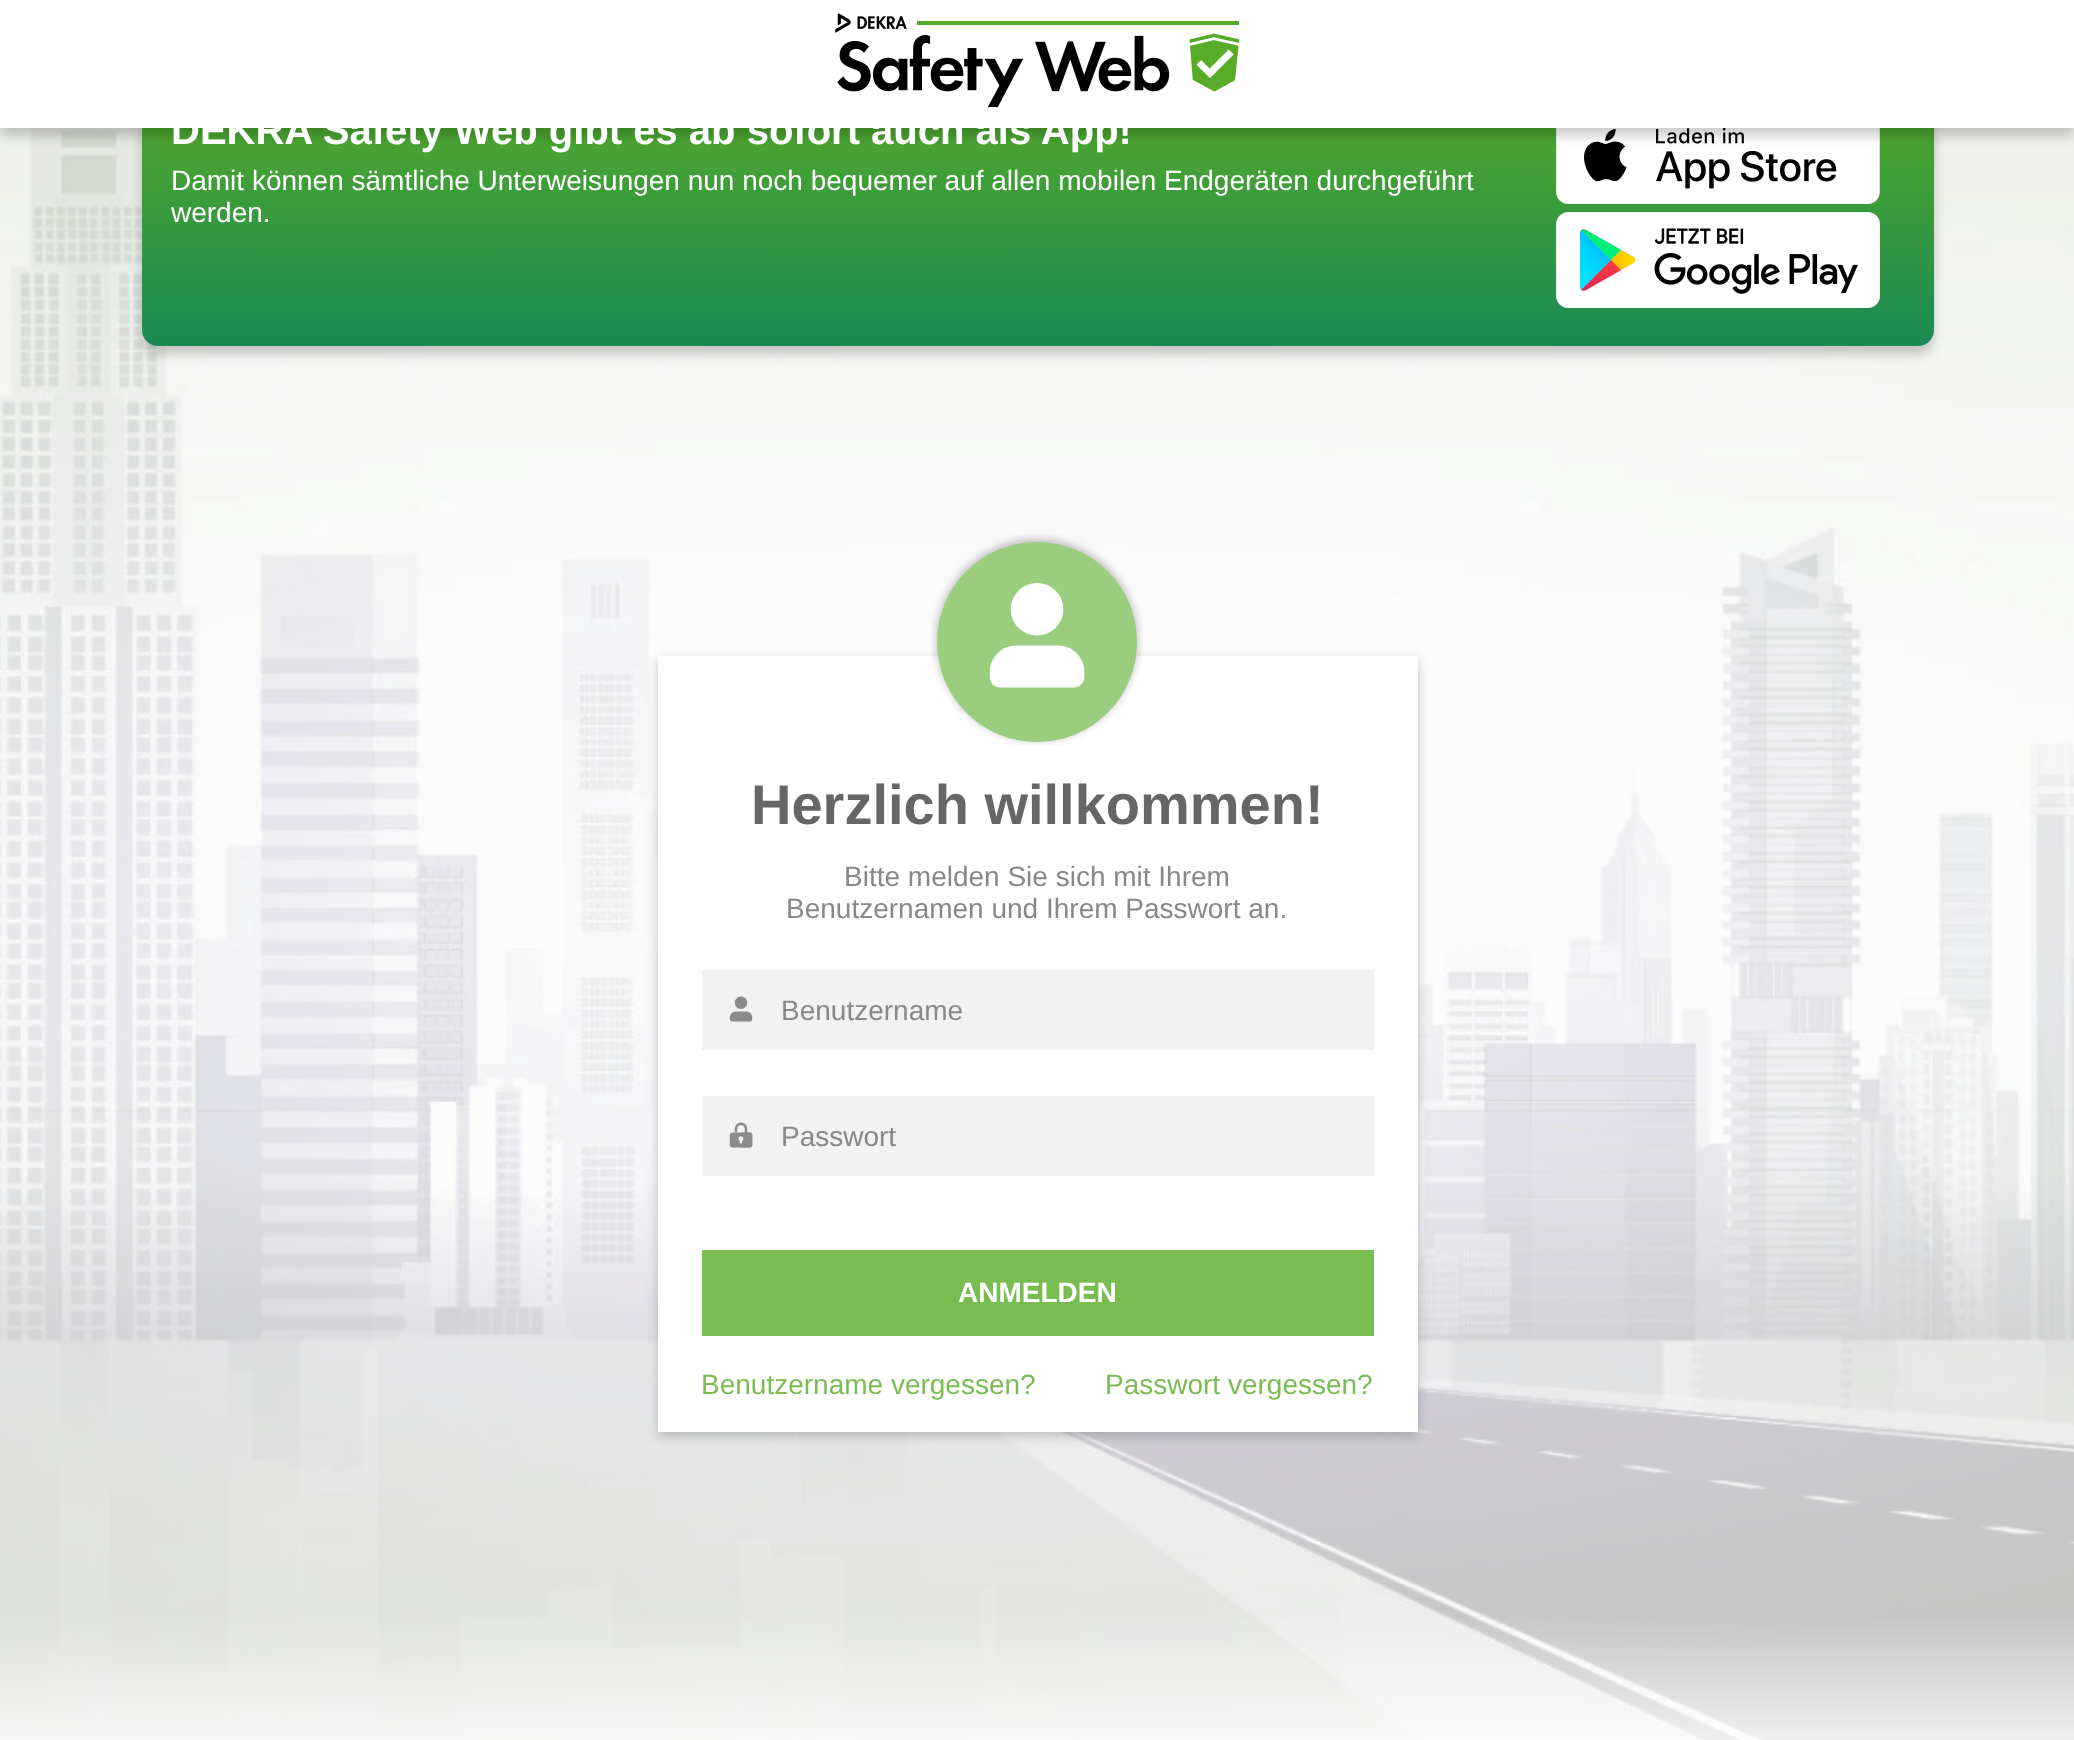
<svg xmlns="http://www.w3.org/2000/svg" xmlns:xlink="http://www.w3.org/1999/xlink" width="2074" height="1740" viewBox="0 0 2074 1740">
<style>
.cls-1{font:bold 40px Liberation Sans;fill:#ffffff}
.cls-2{font:28px Liberation Sans;fill:#ffffff}
.cls-3{font:bold 56px Liberation Sans;fill:#666666}
.cls-4{font:28px Liberation Sans;fill:#888888}
.cls-5{font:bold 28px Liberation Sans;fill:#ffffff}
.cls-6{font:28px Liberation Sans;fill:#79bc52}
</style>
<defs>
<linearGradient id="g1" gradientUnits="userSpaceOnUse" x1="1038" y1="78" x2="1038" y2="346"><stop offset="0" stop-color="#57ab27"/><stop offset="1" stop-color="#1a8a54"/></linearGradient>
</defs>
<rect width="100%" height="100%" fill="#ffffff"/>
<image xlink:href="image3.png" x="0" y="128" width="2074" height="1612"/>
<rect fill="#000000" fill-opacity="0.2" filter="blur(6px)" x="142" y="86" width="1792" height="268" rx="16"/>
<rect fill="url(#g1)" x="142" y="78" width="1792" height="268" rx="16"/>
<image xlink:href="image1.png" x="1556" y="128" width="324" height="76"/>
<rect fill="#000000" fill-opacity="0.2" filter="blur(6px)" x="0" y="8" width="2074" height="128"/>
<rect fill="#ffffff" x="0" y="0" width="2074" height="128"/>
<image xlink:href="image0.png" x="835" y="13" width="405" height="95"/>
<image xlink:href="image2.png" x="1556" y="212" width="324" height="96"/>
<rect fill="#000000" fill-opacity="0.2" filter="blur(6px)" x="658" y="660" width="760" height="776"/>
<rect fill="#ffffff" x="658" y="656" width="760" height="776"/>
<image xlink:href="image4.png" x="931" y="534" width="212" height="212"/>
<rect fill="#f2f2f2" x="702" y="970" width="672" height="80"/>
<image xlink:href="image5.png" x="729" y="996" width="24" height="26"/>
<rect fill="#f2f2f2" x="702" y="1096" width="672" height="80"/>
<image xlink:href="image6.png" x="729" y="1122" width="24" height="26"/>
<rect fill="#79bc52" x="702" y="1250" width="672" height="86"/>
<text class="cls-1" x="171" y="144">DEKRA Safety Web gibt es ab sofort auch als App!</text>
<text class="cls-2"><tspan x="171" y="190">Damit können sämtliche Unterweisungen nun noch bequemer auf allen mobilen Endgeräten durchgeführt</tspan><tspan x="171" y="222">werden.</tspan></text>
<text class="cls-3" x="751" y="824">Herzlich willkommen!</text>
<text class="cls-4" x="844" y="886">Bitte melden Sie sich mit Ihrem</text>
<text class="cls-4" x="786" y="918">Benutzernamen und Ihrem Passwort an.</text>
<text class="cls-4" x="781" y="1020">Benutzername</text>
<text class="cls-4" x="781" y="1146">Passwort</text>
<text class="cls-5" x="958" y="1302">ANMELDEN</text>
<text class="cls-6" x="701" y="1394">Benutzername vergessen?</text>
<text class="cls-6" x="1105" y="1394">Passwort vergessen?</text>
</svg>
